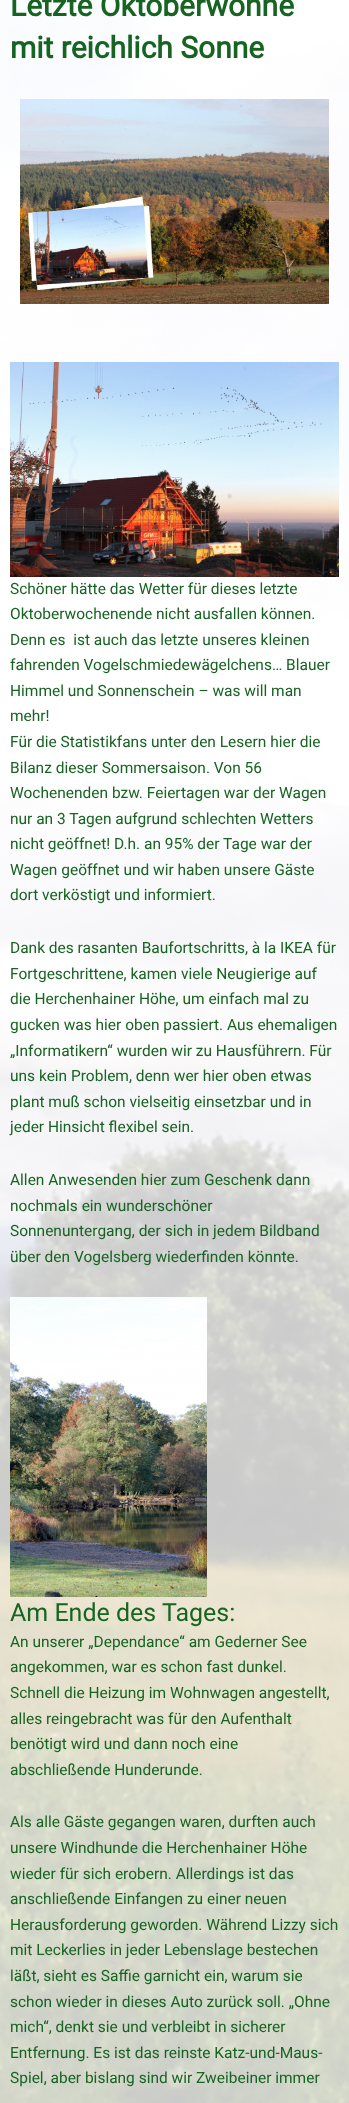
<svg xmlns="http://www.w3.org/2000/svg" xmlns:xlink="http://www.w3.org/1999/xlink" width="349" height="2103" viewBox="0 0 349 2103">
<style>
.cls-1{font:bold 30px Roboto;fill:#176322}
.cls-2{font:15.5px Roboto;fill:#176322}
.cls-3{font:25px Roboto;fill:#176322}
</style>
<rect width="100%" height="100%" fill="#ffffff"/>
<image xlink:href="image0.png" x="0" y="0" width="349" height="2103"/>
<image xlink:href="image1.png" x="20" y="99" width="309" height="205"/>
<image xlink:href="image2.png" x="10" y="362" width="329" height="215"/>
<image xlink:href="image3.png" x="10" y="1297" width="197" height="300"/>
<text class="cls-1"><tspan x="10" y="16">Letzte Oktoberwonne</tspan><tspan x="10" y="58">mit reichlich Sonne</tspan></text>
<text class="cls-2" xml:space="preserve"><tspan x="10" y="594">Schöner hätte das Wetter für dieses letzte</tspan><tspan x="10" y="619">Oktoberwochenende nicht ausfallen können.</tspan><tspan x="10" y="645">Denn es  ist auch das letzte unseres kleinen</tspan><tspan x="10" y="670">fahrenden Vogelschmiedewägelchens… Blauer</tspan><tspan x="10" y="696">Himmel und Sonnenschein – was will man</tspan><tspan x="10" y="721">mehr!</tspan><tspan x="10" y="747">Für die Statistikfans unter den Lesern hier die</tspan><tspan x="10" y="773">Bilanz dieser Sommersaison. Von 56</tspan><tspan x="10" y="798">Wochenenden bzw. Feiertagen war der Wagen</tspan><tspan x="10" y="824">nur an 3 Tagen aufgrund schlechten Wetters</tspan><tspan x="10" y="849">nicht geöffnet! D.h. an 95% der Tage war der</tspan><tspan x="10" y="875">Wagen geöffnet und wir haben unsere Gäste</tspan><tspan x="10" y="900">dort verköstigt und informiert.</tspan></text>
<text class="cls-2"><tspan x="10" y="953">Dank des rasanten Baufortschritts, à la IKEA für</tspan><tspan x="10" y="979">Fortgeschrittene, kamen viele Neugierige auf</tspan><tspan x="10" y="1004">die Herchenhainer Höhe, um einfach mal zu</tspan><tspan x="10" y="1030">gucken was hier oben passiert. Aus ehemaligen</tspan><tspan x="10" y="1056">„Informatikern“ wurden wir zu Hausführern. Für</tspan><tspan x="10" y="1081">uns kein Problem, denn wer hier oben etwas</tspan><tspan x="10" y="1107">plant muß schon vielseitig einsetzbar und in</tspan><tspan x="10" y="1132">jeder Hinsicht flexibel sein.</tspan></text>
<text class="cls-2"><tspan x="10" y="1185">Allen Anwesenden hier zum Geschenk dann</tspan><tspan x="10" y="1211">nochmals ein wunderschöner</tspan><tspan x="10" y="1236">Sonnenuntergang, der sich in jedem Bildband</tspan><tspan x="10" y="1262">über den Vogelsberg wiederfinden könnte.</tspan></text>
<text class="cls-3" x="10" y="1621">Am Ende des Tages:</text>
<text class="cls-2"><tspan x="10" y="1647">An unserer „Dependance“ am Gederner See</tspan><tspan x="10" y="1672">angekommen, war es schon fast dunkel.</tspan><tspan x="10" y="1698">Schnell die Heizung im Wohnwagen angestellt,</tspan><tspan x="10" y="1724">alles reingebracht was für den Aufenthalt</tspan><tspan x="10" y="1749">benötigt wird und dann noch eine</tspan><tspan x="10" y="1775">abschließende Hunderunde.</tspan></text>
<text class="cls-2"><tspan x="10" y="1827">Als alle Gäste gegangen waren, durften auch</tspan><tspan x="10" y="1853">unsere Windhunde die Herchenhainer Höhe</tspan><tspan x="10" y="1879">wieder für sich erobern. Allerdings ist das</tspan><tspan x="10" y="1904">anschließende Einfangen zu einer neuen</tspan><tspan x="10" y="1930">Herausforderung geworden. Während Lizzy sich</tspan><tspan x="10" y="1955">mit Leckerlies in jeder Lebenslage bestechen</tspan><tspan x="10" y="1981">läßt, sieht es Saffie garnicht ein, warum sie</tspan><tspan x="10" y="2007">schon wieder in dieses Auto zurück soll. „Ohne</tspan><tspan x="10" y="2032">mich“, denkt sie und verbleibt in sicherer</tspan><tspan x="10" y="2058">Entfernung. Es ist das reinste Katz-und-Maus-</tspan><tspan x="10" y="2083">Spiel, aber bislang sind wir Zweibeiner immer</tspan></text>
</svg>
